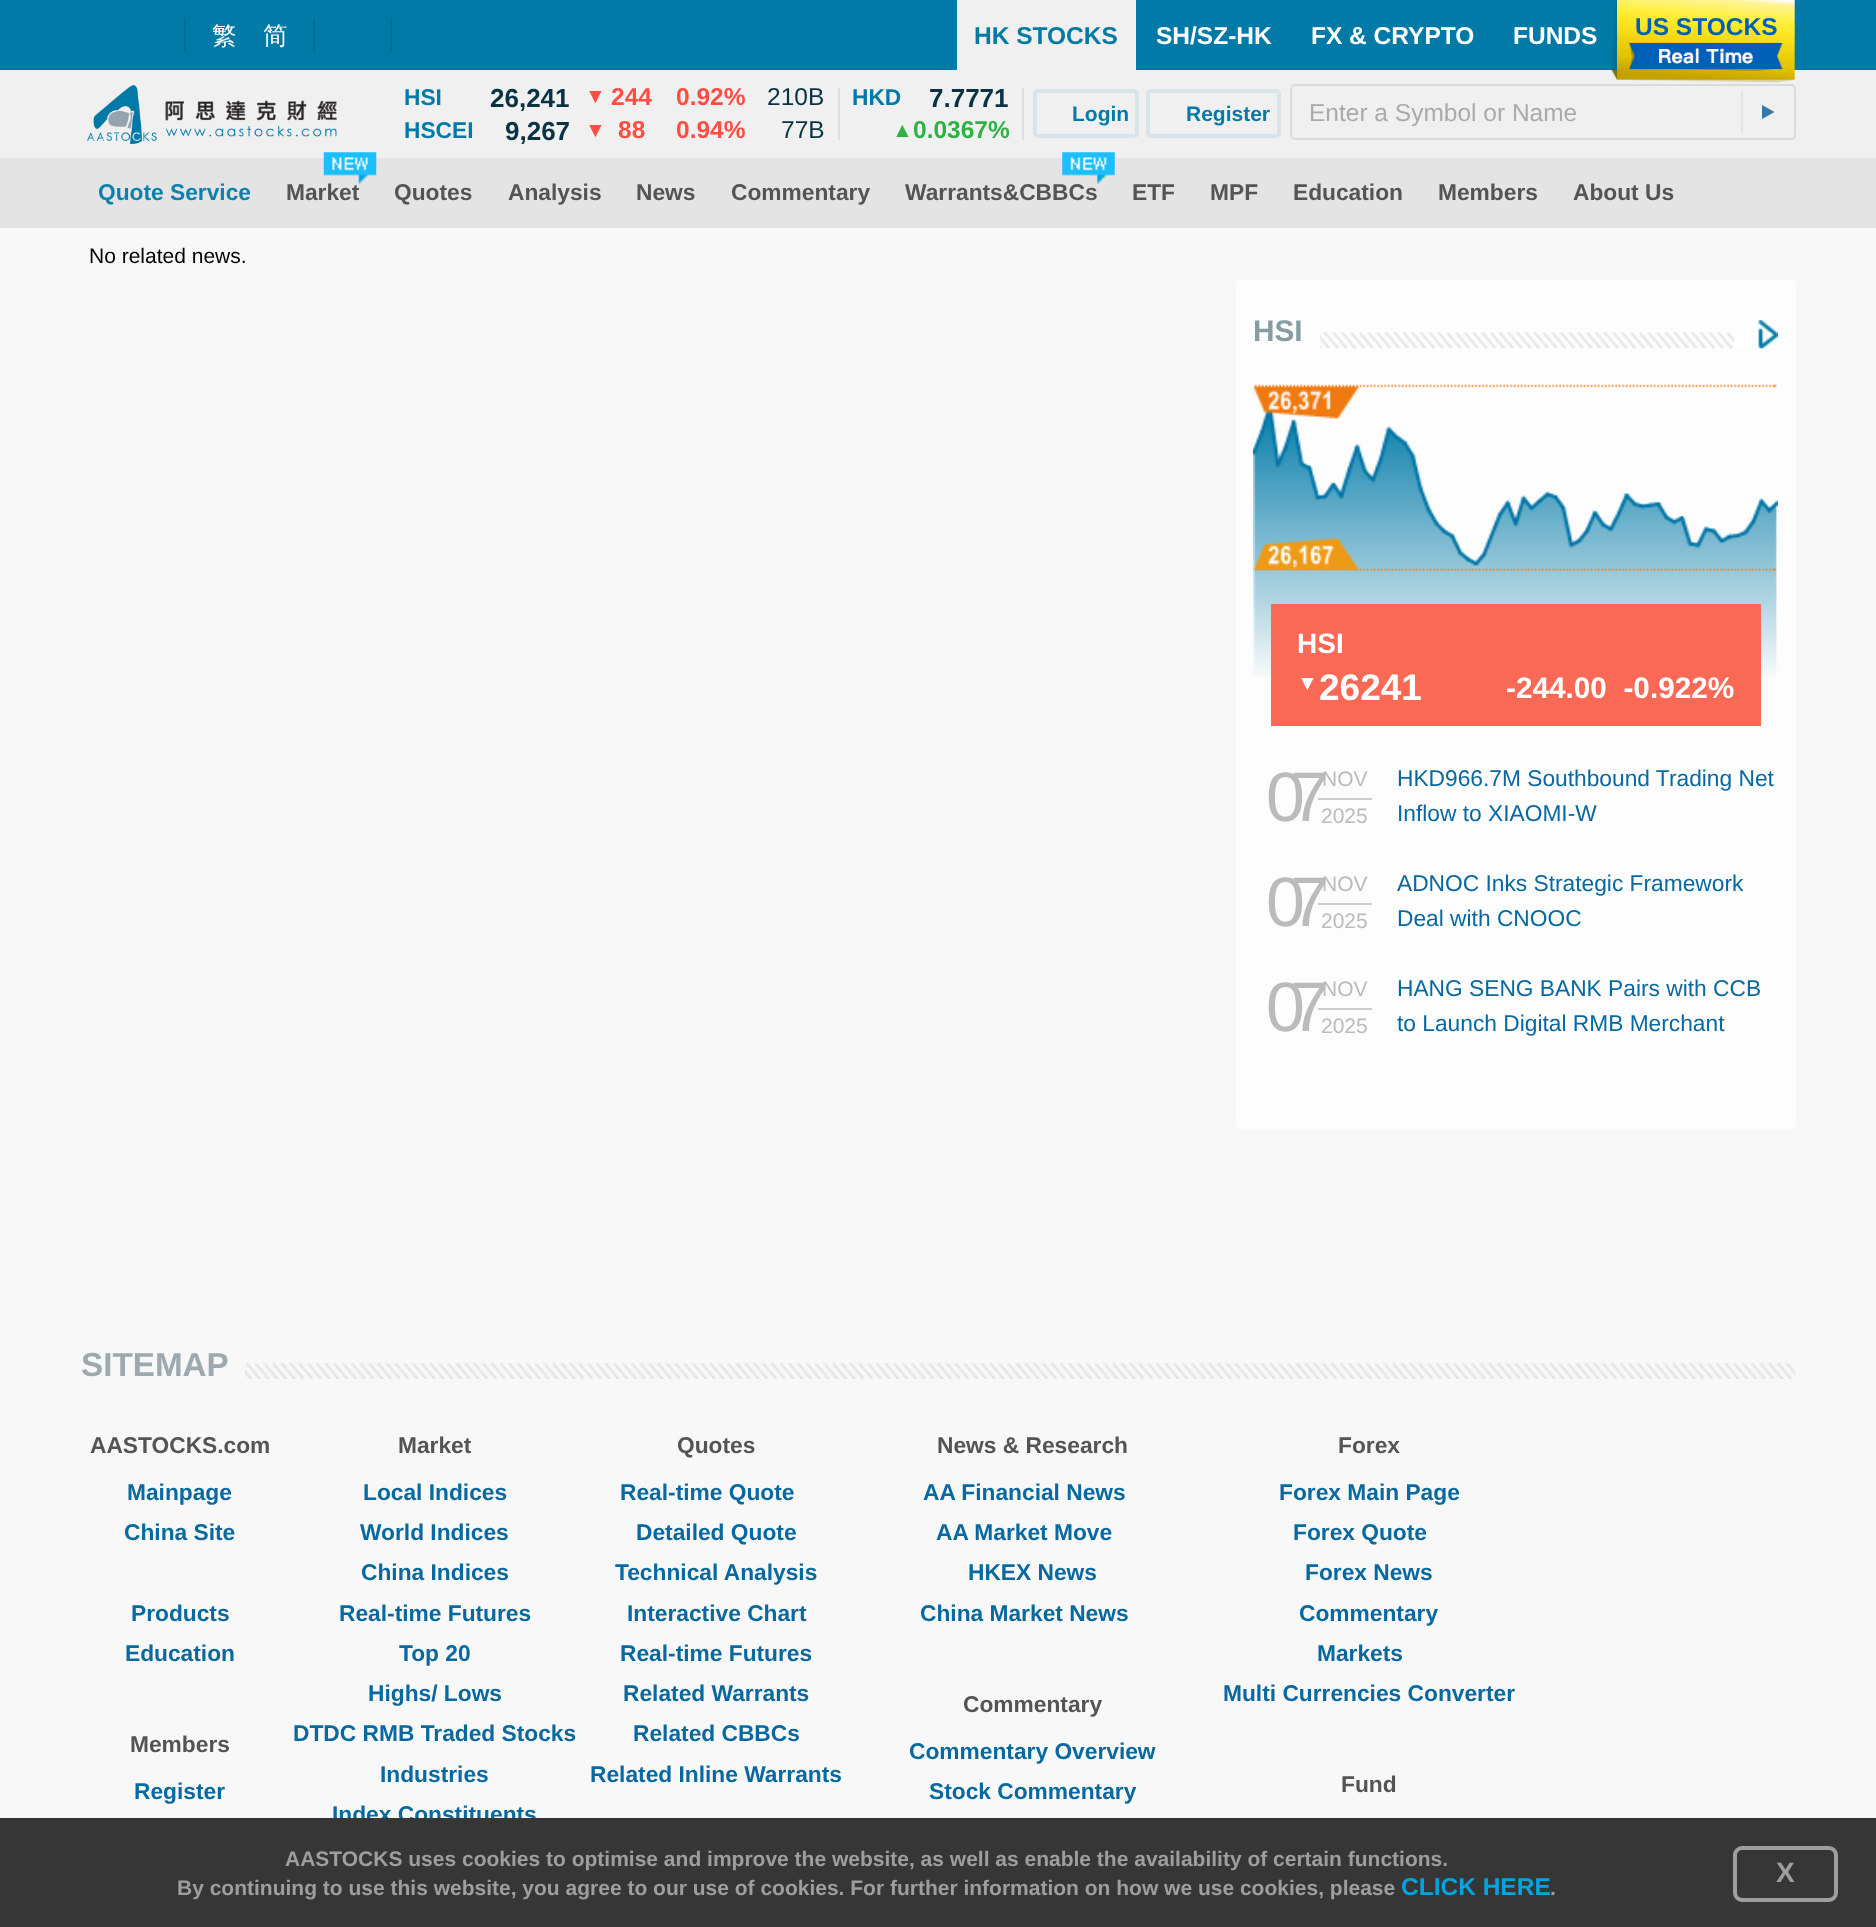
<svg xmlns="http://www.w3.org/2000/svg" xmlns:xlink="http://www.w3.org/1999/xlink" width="1876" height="1927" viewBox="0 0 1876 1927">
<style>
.cls-1{font:500 24.5px WenQuanYi Zen Hei;fill:#ffffff}
.cls-2{font:bold 24.5px Liberation Sans;fill:#017aa7}
.cls-3{font:bold 24.5px Liberation Sans;fill:#ffffff}
.cls-4{font:bold 24.5px Liberation Sans;fill:#005fb7}
.cls-5{font:bold 22.75px Liberation Sans;fill:#017aa7}
.cls-6{font:bold 26px Liberation Sans;fill:#083343}
.cls-7{font:bold 21px Liberation Sans;fill:#fe4e44}
.cls-8{font:bold 24.5px Liberation Sans;fill:#fe4e44}
.cls-9{font:24.5px Liberation Sans;fill:#083343}
.cls-10{font:bold 21px Liberation Sans;fill:#2eb244}
.cls-11{font:bold 24.5px Liberation Sans;fill:#2eb244}
.cls-12{font:bold 21px Liberation Sans;fill:#017aa7}
.cls-13{font:24.5px Liberation Sans;fill:#aaaaaa}
.cls-14{font:bold 22.75px Liberation Sans;fill:#0c81ae}
.cls-15{font:bold 22.75px Liberation Sans;fill:#545454}
.cls-16{font:21px Liberation Sans;fill:#000000}
.cls-17{font:bold 29.75px Liberation Sans;fill:#869ca4}
.cls-18{font:bold 28px Liberation Sans;fill:#ffffff}
.cls-19{font:bold 21px Liberation Sans;fill:#ffffff}
.cls-20{font:bold 37px Liberation Sans;fill:#ffffff}
.cls-21{font:bold 29.75px Liberation Sans;fill:#ffffff}
.cls-22{font:70px Liberation Sans;letter-spacing:-15px;fill:#bbbbbb}
.cls-23{font:21px Liberation Sans;fill:#bbbbbb}
.cls-24{font:22.75px Liberation Sans;fill:#0869a1}
.cls-25{font:bold 33.25px Liberation Sans;fill:#9caaaf}
.cls-26{font:bold 22.75px Liberation Sans;fill:#0869a1}
.cls-27{font:bold 21px Liberation Sans;fill:#9e9e9e}
.cls-28{font:bold 24.5px Liberation Sans;fill:#00a5df}
.cls-29{font:bold 28px Liberation Sans;fill:#9e9e9e}
</style>
<rect width="100%" height="100%" fill="#f8f8f8"/>
<rect fill="#f0f0f0" x="0" y="70" width="1876" height="88"/>
<rect fill="#017aa7" x="0" y="0" width="1876" height="70"/>
<rect fill="#006e97" x="184" y="18" width="2" height="35"/>
<rect fill="#006e97" x="313" y="18" width="2" height="35"/>
<rect fill="#006e97" x="390" y="18" width="2" height="35"/>
<rect fill="#f0f0f0" x="957" y="0" width="179" height="70"/>
<image xlink:href="image0.png" x="1611" y="0" width="184" height="83"/>
<image xlink:href="image1.png" x="87" y="85" width="250" height="59"/>
<rect fill="#dfdfdf" x="838" y="88" width="2" height="52"/>
<rect fill="#dfdfdf" x="1022" y="88" width="2" height="52"/>
<rect fill="none" stroke="#d8e4e9" stroke-width="4" x="1035" y="91" width="102" height="45" rx="3"/>
<rect fill="none" stroke="#d8e4e9" stroke-width="4" x="1148" y="91" width="131" height="45" rx="3"/>
<rect fill="none" stroke="#dadada" stroke-width="2" x="1291" y="85" width="504" height="54" rx="4"/>
<rect fill="#e5e5e5" x="1741" y="91" width="2" height="42"/>
<path fill="#3579a3" d="M1762 119V105L1774.5 112Z"/>
<rect fill="#e4e4e4" x="0" y="158" width="1876" height="70"/>
<image xlink:href="image3.png" x="1062" y="152" width="53" height="32"/>
<rect fill="#fdfdfd" x="1236" y="280" width="560" height="849" rx="5"/>
<image xlink:href="image5.png" x="1320" y="332" width="457" height="17"/>
<rect fill="#ffffff" x="1734" y="332" width="43" height="16"/>
<image xlink:href="image4.png" x="1758" y="320" width="20" height="29"/>
<image xlink:href="image6.png" x="1253" y="384" width="525" height="293"/>
<rect fill="#fa6956" x="1271" y="604" width="490" height="122"/>
<image xlink:href="image7.png" x="245" y="1363" width="1551" height="16"/>
<text class="cls-1" x="212" y="44">繁</text>
<text class="cls-1" x="263" y="44">简</text>
<text class="cls-2" x="974" y="44">HK STOCKS</text>
<text class="cls-3" x="1156" y="44">SH/SZ-HK</text>
<text class="cls-3" x="1311" y="44">FX &amp; CRYPTO</text>
<text class="cls-3" x="1513" y="44">FUNDS</text>
<text class="cls-4" x="1635" y="35">US STOCKS</text>
<text class="cls-5" x="404" y="105">HSI</text>
<text class="cls-6" x="490" y="107">26,241</text>
<text class="cls-7" x="585" y="103">▼</text>
<text class="cls-8" x="611" y="105">244</text>
<text class="cls-8" x="676" y="105">0.92%</text>
<text class="cls-9" x="767" y="105">210B</text>
<text class="cls-5" x="404" y="138">HSCEI</text>
<text class="cls-6" x="505" y="140">9,267</text>
<text class="cls-7" x="585" y="137">▼</text>
<text class="cls-8" x="618" y="138">88</text>
<text class="cls-8" x="676" y="138">0.94%</text>
<text class="cls-9" x="781" y="138">77B</text>
<text class="cls-5" x="852" y="105">HKD</text>
<text class="cls-6" x="929" y="107">7.7771</text>
<text class="cls-10" x="892" y="137">▲</text>
<text class="cls-11" x="913" y="138">0.0367%</text>
<text class="cls-12" x="1072" y="121">Login</text>
<text class="cls-12" x="1186" y="121">Register</text>
<text class="cls-13" x="1309" y="121">Enter a Symbol or Name</text>
<text class="cls-14" x="98" y="200">Quote Service</text>
<text class="cls-15" x="286" y="200">Market</text>
<image xlink:href="image2.png" x="323" y="152" width="54" height="32"/>
<text class="cls-15" x="394" y="200">Quotes</text>
<text class="cls-15" x="508" y="200">Analysis</text>
<text class="cls-15" x="636" y="200">News</text>
<text class="cls-15" x="731" y="200">Commentary</text>
<text class="cls-15" x="905" y="200">Warrants&amp;CBBCs</text>
<text class="cls-15" x="1132" y="200">ETF</text>
<text class="cls-15" x="1210" y="200">MPF</text>
<text class="cls-15" x="1293" y="200">Education</text>
<text class="cls-15" x="1438" y="200">Members</text>
<text class="cls-15" x="1573" y="200">About Us</text>
<text class="cls-16" x="89" y="263">No related news.</text>
<text class="cls-17" x="1253" y="341">HSI</text>
<text class="cls-18" x="1297" y="653">HSI</text>
<text class="cls-19" x="1297" y="690">▼</text>
<text class="cls-20" x="1319" y="700">26241</text>
<text class="cls-21" xml:space="preserve" x="1506" y="698">-244.00  -0.922%</text>
<text class="cls-22" x="1266" y="821">07</text>
<rect fill="#cccccc" x="1318" y="798" width="54" height="2"/>
<text class="cls-23" x="1322" y="786">NOV</text>
<text class="cls-23" x="1321" y="823">2025</text>
<text class="cls-24"><tspan x="1397" y="786">HKD966.7M Southbound Trading Net</tspan><tspan x="1397" y="821">Inflow to XIAOMI-W</tspan></text>
<text class="cls-22" x="1266" y="926">07</text>
<rect fill="#cccccc" x="1318" y="903" width="54" height="2"/>
<text class="cls-23" x="1322" y="891">NOV</text>
<text class="cls-23" x="1321" y="928">2025</text>
<text class="cls-24"><tspan x="1397" y="891">ADNOC Inks Strategic Framework</tspan><tspan x="1397" y="926">Deal with CNOOC</tspan></text>
<text class="cls-22" x="1266" y="1031">07</text>
<rect fill="#cccccc" x="1318" y="1008" width="54" height="2"/>
<text class="cls-23" x="1322" y="996">NOV</text>
<text class="cls-23" x="1321" y="1033">2025</text>
<text class="cls-24"><tspan x="1397" y="996">HANG SENG BANK Pairs with CCB</tspan><tspan x="1397" y="1031">to Launch Digital RMB Merchant</tspan></text>
<text class="cls-25" x="81" y="1376">SITEMAP</text>
<text class="cls-15" x="90" y="1453">AASTOCKS.com</text>
<text class="cls-26" x="127" y="1500">Mainpage</text>
<text class="cls-26" x="124" y="1540">China Site</text>
<text class="cls-26" x="131" y="1621">Products</text>
<text class="cls-26" x="125" y="1661">Education</text>
<text class="cls-15" x="130" y="1752">Members</text>
<text class="cls-26" x="134" y="1799">Register</text>
<text class="cls-15" x="398" y="1453">Market</text>
<text class="cls-26" x="363" y="1500">Local Indices</text>
<text class="cls-26" x="360" y="1540">World Indices</text>
<text class="cls-26" x="361" y="1580">China Indices</text>
<text class="cls-26" x="339" y="1621">Real-time Futures</text>
<text class="cls-26" x="399" y="1661">Top 20</text>
<text class="cls-26" x="368" y="1701">Highs/ Lows</text>
<text class="cls-26" x="293" y="1741">DTDC RMB Traded Stocks</text>
<text class="cls-26" x="380" y="1782">Industries</text>
<text class="cls-26" x="332" y="1822">Index Constituents</text>
<text class="cls-15" x="677" y="1453">Quotes</text>
<text class="cls-26" x="620" y="1500">Real-time Quote</text>
<text class="cls-26" x="636" y="1540">Detailed Quote</text>
<text class="cls-26" x="615" y="1580">Technical Analysis</text>
<text class="cls-26" x="627" y="1621">Interactive Chart</text>
<text class="cls-26" x="620" y="1661">Real-time Futures</text>
<text class="cls-26" x="623" y="1701">Related Warrants</text>
<text class="cls-26" x="633" y="1741">Related CBBCs</text>
<text class="cls-26" x="590" y="1782">Related Inline Warrants</text>
<text class="cls-15" x="937" y="1453">News &amp; Research</text>
<text class="cls-26" x="923" y="1500">AA Financial News</text>
<text class="cls-26" x="936" y="1540">AA Market Move</text>
<text class="cls-26" x="968" y="1580">HKEX News</text>
<text class="cls-26" x="920" y="1621">China Market News</text>
<text class="cls-15" x="963" y="1712">Commentary</text>
<text class="cls-26" x="909" y="1759">Commentary Overview</text>
<text class="cls-26" x="929" y="1799">Stock Commentary</text>
<text class="cls-15" x="1338" y="1453">Forex</text>
<text class="cls-26" x="1279" y="1500">Forex Main Page</text>
<text class="cls-26" x="1293" y="1540">Forex Quote</text>
<text class="cls-26" x="1305" y="1580">Forex News</text>
<text class="cls-26" x="1299" y="1621">Commentary</text>
<text class="cls-26" x="1317" y="1661">Markets</text>
<text class="cls-26" x="1223" y="1701">Multi Currencies Converter</text>
<text class="cls-15" x="1341" y="1792">Fund</text>
<rect fill="#363636" x="0" y="1818" width="1876" height="109"/>
<text class="cls-27" x="285" y="1866">AASTOCKS uses cookies to optimise and improve the website, as well as enable the availability of certain functions.</text>
<text class="cls-27" x="177" y="1895">By continuing to use this website, you agree to our use of cookies. For further information on how we use cookies, please</text>
<text class="cls-28" x="1401" y="1895">CLICK HERE</text>
<text class="cls-27" x="1550" y="1895">.</text>
<rect fill="none" stroke="#9e9e9e" stroke-width="4" x="1735" y="1848" width="101" height="52" rx="7"/>
<text class="cls-29" x="1776" y="1882">X</text>
</svg>
